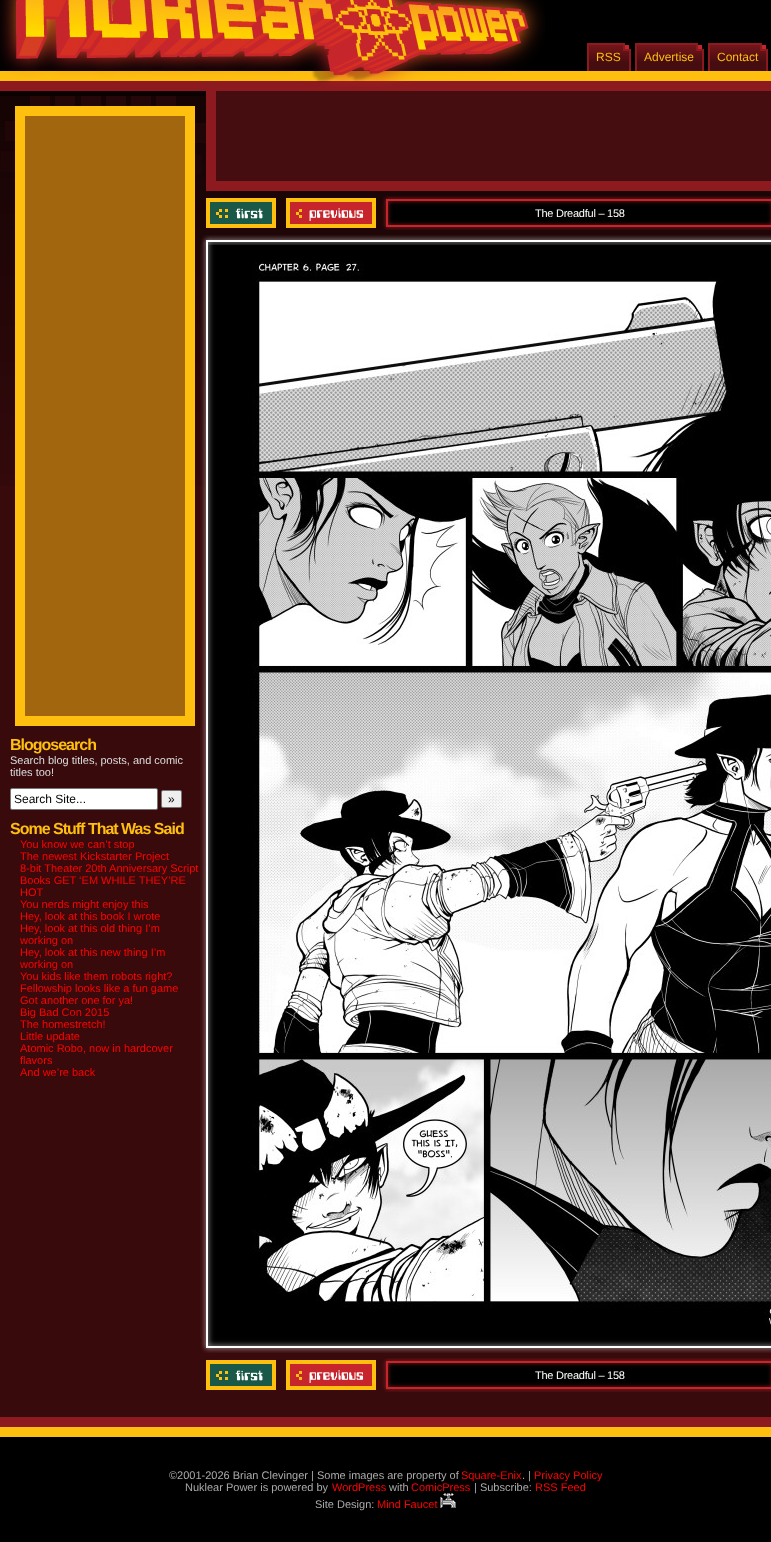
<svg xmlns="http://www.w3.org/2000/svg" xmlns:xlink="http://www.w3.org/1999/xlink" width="771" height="1542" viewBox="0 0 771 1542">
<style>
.cls-1{font:12px Liberation Sans;fill:#febf0f}
.cls-2{font:bold 16px Liberation Sans;letter-spacing:-1px;fill:#febf0f}
.cls-3{font:11px Liberation Sans;fill:#dcdcdc}
.cls-4{font:12px Liberation Sans;fill:#000000}
.cls-5{font:11px Liberation Sans;fill:#ff0000}
.cls-6{font:11px Liberation Sans;letter-spacing:-0.25px;fill:#ffffff}
.cls-7{font:11px Liberation Sans;fill:#aaaaaa}
</style>
<rect width="100%" height="100%" fill="#380a0c"/>
<image xlink:href="image0.png" x="0" y="0" width="771" height="486"/>
<image xlink:href="image1.png" x="0" y="0" width="545" height="87"/>
<image xlink:href="image2.png" x="589" y="43" width="42" height="28"/>
<rect fill="#8c1a1f" x="587" y="43" width="2" height="28"/>
<image xlink:href="image3.png" x="637" y="43" width="67" height="28"/>
<rect fill="#8c1a1f" x="635" y="43" width="2" height="28"/>
<image xlink:href="image4.png" x="710" y="43" width="58" height="28"/>
<rect fill="#8c1a1f" x="708" y="43" width="2" height="28"/>
<rect fill="#a2660f" stroke="#febf0f" stroke-width="10" x="20" y="111" width="170" height="610"/>
<rect fill="#ffffff" stroke="#767676" x="10.5" y="788.5" width="147" height="21" rx="1.5"/>
<rect fill="#efefef" stroke="#767676" x="161.5" y="790.5" width="20" height="17" rx="1.5"/>
<rect fill="#460d10" x="216" y="91" width="555" height="90"/>
<rect fill="#8c1a1f" x="216" y="181" width="555" height="10"/>
<rect fill="#8c1a1f" x="206" y="91" width="10" height="100"/>
<image xlink:href="image5.png" x="206" y="196" width="565" height="34"/>
<image xlink:href="image6.png" x="210" y="202" width="62" height="22"/>
<image xlink:href="image7.png" x="290" y="202" width="82" height="22"/>
<image xlink:href="image8.png" x="201" y="235" width="570" height="10"/>
<image xlink:href="image9.png" x="200" y="245" width="571" height="1093"/>
<image xlink:href="image10.png" x="252" y="261" width="519" height="1064"/>
<image xlink:href="image11.png" x="201" y="1338" width="570" height="15"/>
<image xlink:href="image12.png" x="206" y="1358" width="565" height="34"/>
<image xlink:href="image6.png" x="210" y="1364" width="62" height="22"/>
<image xlink:href="image7.png" x="290" y="1364" width="82" height="22"/>
<rect fill="#000000" x="0" y="1437" width="771" height="105"/>
<image xlink:href="image13.png" x="0" y="1417" width="771" height="20"/>
<image xlink:href="image14.png" x="440" y="1493" width="16" height="15"/>
<text class="cls-1" x="596" y="61">RSS</text>
<text class="cls-1" x="644" y="61">Advertise</text>
<text class="cls-1" x="717" y="61">Contact</text>
<text class="cls-2" x="10" y="750">Blogosearch</text>
<text class="cls-3"><tspan x="10" y="764">Search blog titles, posts, and comic</tspan><tspan x="10" y="776">titles too!</tspan></text>
<text class="cls-4" x="14" y="803">Search Site...</text>
<text class="cls-4" x="168" y="803">»</text>
<text class="cls-2" x="10" y="834">Some Stuff That Was Said</text>
<text class="cls-5"><tspan x="20" y="848">You know we can’t stop</tspan><tspan x="20" y="860">The newest Kickstarter Project</tspan><tspan x="20" y="872">8-bit Theater 20th Anniversary Script</tspan><tspan x="20" y="884">Books GET ‘EM WHILE THEY’RE</tspan><tspan x="20" y="896">HOT</tspan><tspan x="20" y="908">You nerds might enjoy this</tspan><tspan x="20" y="920">Hey, look at this book I wrote</tspan><tspan x="20" y="932">Hey, look at this old thing I’m</tspan><tspan x="20" y="944">working on</tspan><tspan x="20" y="956">Hey, look at this new thing I’m</tspan><tspan x="20" y="968">working on</tspan><tspan x="20" y="980">You kids like them robots right?</tspan><tspan x="20" y="992">Fellowship looks like a fun game</tspan><tspan x="20" y="1004">Got another one for ya!</tspan><tspan x="20" y="1016">Big Bad Con 2015</tspan><tspan x="20" y="1028">The homestretch!</tspan><tspan x="20" y="1040">Little update</tspan><tspan x="20" y="1052">Atomic Robo, now in hardcover</tspan><tspan x="20" y="1064">flavors</tspan><tspan x="20" y="1076">And we’re back</tspan></text>
<text class="cls-6" x="535" y="217">The Dreadful – 158</text>
<text class="cls-6" x="535" y="1379">The Dreadful – 158</text>
<text class="cls-7" x="169" y="1479">©2001-2026 Brian Clevinger | Some images are property of</text>
<text class="cls-5" x="461" y="1479">Square-Enix</text>
<text class="cls-7" x="522" y="1479">. |</text>
<text class="cls-5" x="534" y="1479">Privacy Policy</text>
<text class="cls-7" x="185" y="1491">Nuklear Power is powered by</text>
<text class="cls-5" x="332" y="1491">WordPress</text>
<text class="cls-7" x="389" y="1491">with</text>
<text class="cls-5" x="411" y="1491">ComicPress</text>
<text class="cls-7" x="474" y="1491">| Subscribe:</text>
<text class="cls-5" x="535" y="1491">RSS Feed</text>
<text class="cls-7" x="315" y="1508">Site Design:</text>
<text class="cls-5" x="377" y="1508">Mind Faucet</text>
</svg>
